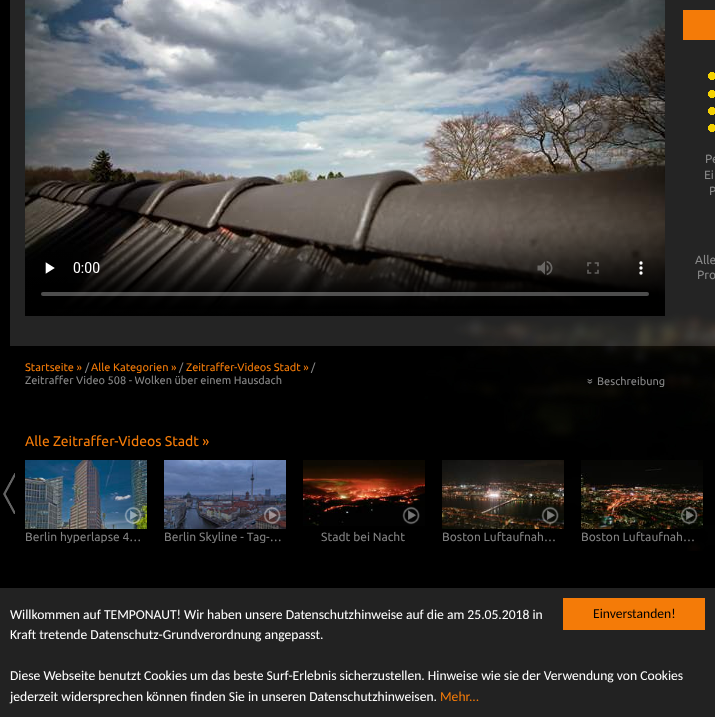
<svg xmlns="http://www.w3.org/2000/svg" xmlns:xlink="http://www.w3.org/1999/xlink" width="715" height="717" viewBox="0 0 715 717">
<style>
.cls-1{font:12px Ubuntu;fill:#888888}
.cls-2{font:11px Ubuntu;fill:#f47b08}
.cls-3{font:11px Ubuntu;fill:#888888}
.cls-4{font:14px Ubuntu;fill:#f47b08}
.cls-5{font:12px Ubuntu;fill:#808080}
.cls-6{font:13.6px Carlito;fill:#000000}
.cls-7{font:13.6px Carlito;fill:#ffffff}
.cls-8{font:13.6px Carlito;fill:#f47b08}
</style>
<defs>
<clipPath id="clip1"><rect x="25" y="531" width="120" height="12"/></clipPath>
<clipPath id="clip2"><rect x="164" y="531" width="120" height="12"/></clipPath>
</defs>
<rect width="100%" height="100%" fill="#000000"/>
<image xlink:href="image0.png" x="208" y="0" width="507" height="551"/>
<rect fill="#ffffff" fill-opacity="0.14" x="10" y="0" width="705" height="346"/>
<image xlink:href="image1.png" x="25" y="0" width="640" height="316"/>
<rect fill="#f47b08" x="683" y="10" width="32" height="30"/>
<image xlink:href="image2.png" x="708" y="72" width="7" height="8"/>
<image xlink:href="image2.png" x="708" y="90" width="7" height="8"/>
<image xlink:href="image2.png" x="708" y="107" width="7" height="8"/>
<image xlink:href="image2.png" x="708" y="124" width="7" height="8"/>
<image xlink:href="image3.png" x="3" y="473" width="12" height="41"/>
<image xlink:href="image4.png" x="25" y="460" width="122" height="69"/>
<image xlink:href="image5.png" x="124" y="506" width="18" height="19"/>
<image xlink:href="image6.png" x="164" y="460" width="122" height="69"/>
<image xlink:href="image7.png" x="263" y="506" width="18" height="19"/>
<image xlink:href="image8.png" x="303" y="460" width="122" height="66"/>
<image xlink:href="image9.png" x="402" y="506" width="18" height="19"/>
<image xlink:href="image10.png" x="442" y="460" width="122" height="69"/>
<image xlink:href="image11.png" x="541" y="506" width="18" height="19"/>
<image xlink:href="image12.png" x="581" y="460" width="122" height="69"/>
<image xlink:href="image13.png" x="680" y="506" width="18" height="19"/>
<rect fill="#222222" x="0" y="588" width="715" height="129"/>
<rect fill="#f47b08" x="563" y="598" width="142" height="32"/>
<text class="cls-1" x="705" y="163">Pe</text>
<text class="cls-1" x="704" y="179">Ei</text>
<text class="cls-1" x="709" y="195">P</text>
<text class="cls-1" x="695" y="264">Alle</text>
<text class="cls-1" x="697" y="279">Pro</text>
<text class="cls-2" x="25" y="371">Startseite »</text>
<text class="cls-3" x="85" y="371">/</text>
<text class="cls-2" x="91" y="371">Alle Kategorien »</text>
<text class="cls-3" x="179" y="371">/</text>
<text class="cls-2" x="186" y="371">Zeitraffer-Videos Stadt »</text>
<text class="cls-3" x="311" y="371">/</text>
<text class="cls-3" x="25" y="384">Zeitraffer Video 508 - Wolken über einem Hausdach</text>
<text class="cls-3" x="593" y="384" transform="rotate(-90 593 384)">«</text>
<text class="cls-3" x="597" y="385">Beschreibung</text>
<text class="cls-4" x="25" y="446">Alle Zeitraffer-Videos Stadt »</text>
<g clip-path="url(#clip1)">
<text class="cls-5" x="25" y="541">Berlin hyperlapse 4…</text>
</g>
<g clip-path="url(#clip2)">
<text class="cls-5" x="164" y="541">Berlin Skyline - Tag-…</text>
</g>
<text class="cls-5" x="321" y="541">Stadt bei Nacht</text>
<text class="cls-5" x="442" y="541">Boston Luftaufnah…</text>
<text class="cls-5" x="581" y="541">Boston Luftaufnah…</text>
<text class="cls-6" x="593" y="618">Einverstanden!</text>
<text class="cls-7"><tspan x="10" y="619">Willkommen auf TEMPONAUT! Wir haben unsere Datenschutzhinweise auf die am 25.05.2018 in</tspan><tspan x="10" y="639">Kraft tretende Datenschutz-Grundverordnung angepasst.</tspan></text>
<text class="cls-7"><tspan x="10" y="680">Diese Webseite benutzt Cookies um das beste Surf-Erlebnis sicherzustellen. Hinweise wie sie der Verwendung von Cookies</tspan><tspan x="10" y="701">jederzeit widersprechen können finden Sie in unseren Datenschutzhinweisen.</tspan></text>
<text class="cls-8" x="440" y="701">Mehr...</text>
</svg>
